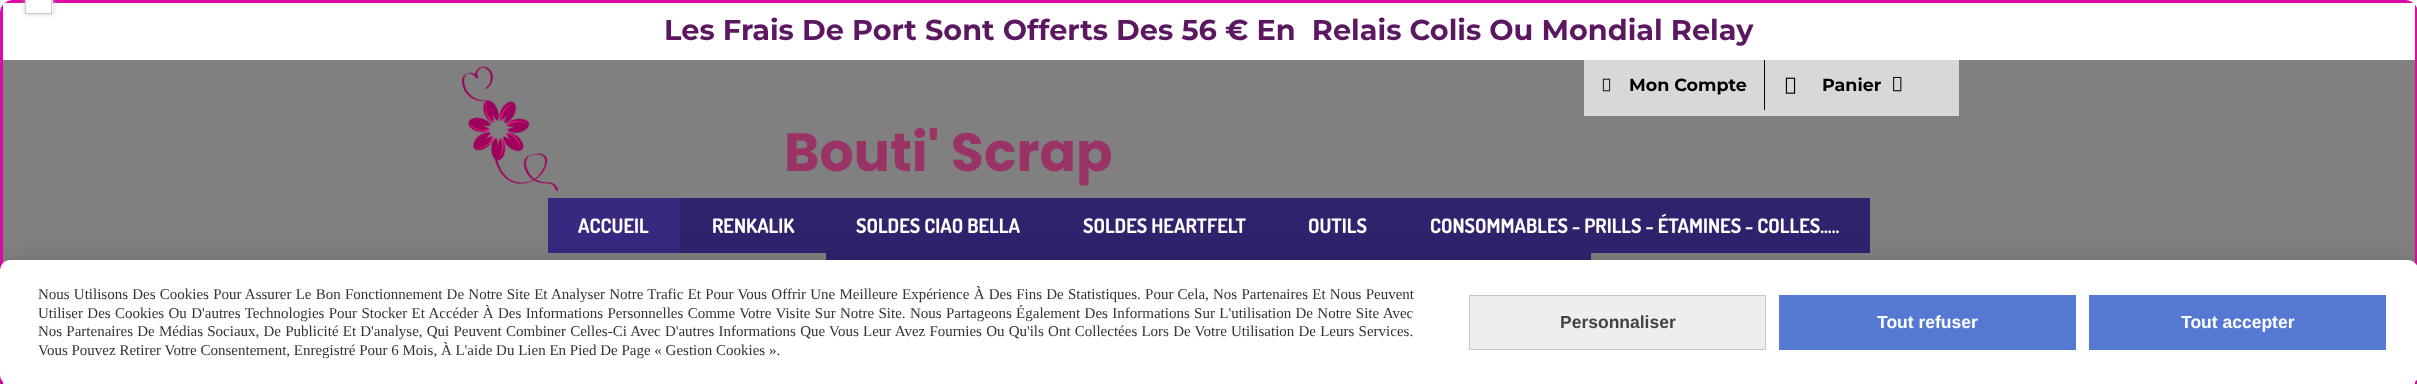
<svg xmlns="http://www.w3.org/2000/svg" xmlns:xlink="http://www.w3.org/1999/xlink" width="2417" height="384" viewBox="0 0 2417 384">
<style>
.cls-1{font:bold 28.75px Montserrat;fill:#5b1861}
.cls-2{font:bold 17.5px Montserrat;fill:#000000}
.cls-3{font:bold 53.75px Poppins;fill:#993366}
.cls-4{font:bold 20px Dosis;fill:#ffffff}
.cls-5{font:15px Liberation Serif;fill:#333333}
.cls-6{font:bold 17.5px Liberation Sans;fill:#444444}
.cls-7{font:bold 17.5px Liberation Sans;fill:#ffffff}
</style>
<rect width="100%" height="100%" fill="#ffffff"/>
<rect fill="none" stroke="#de0aa7" stroke-width="3" x="1.5" y="1.5" width="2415" height="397" rx="11.5"/>
<rect fill="#ffffff" x="3" y="3" width="2412" height="10"/>
<rect fill="#cccccc" filter="blur(2.5px)" x="25" y="0" width="28" height="14"/>
<rect fill="#ffffff" x="26" y="0" width="27" height="13"/>
<rect fill="#cccccc" x="51" y="0" width="1" height="14"/>
<rect fill="#cccccc" x="25" y="13" width="28" height="1"/>
<rect fill="#cccccc" x="25" y="0" width="1" height="14"/>
<rect fill="#808080" x="3" y="60" width="2412" height="203"/>
<image xlink:href="image0.png" x="462" y="66" width="96" height="126"/>
<rect fill="#d8d8d8" x="1584" y="60" width="375" height="56"/>
<rect fill="#000000" x="1764" y="60" width="1" height="50"/>
<image xlink:href="image1.png" x="1602" y="78" width="9" height="14"/>
<image xlink:href="image2.png" x="1785" y="77" width="11" height="17"/>
<image xlink:href="image3.png" x="1893" y="76" width="9" height="16"/>
<rect fill="#382880" x="548" y="198" width="132" height="55"/>
<rect fill="#30226d" x="680" y="198" width="1190" height="55"/>
<rect fill="#30226d" x="826" y="253" width="765" height="7"/>
<rect fill="#000000" fill-opacity="0.05" filter="blur(4px)" x="0" y="263" width="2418" height="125" rx="10"/>
<rect fill="#000000" fill-opacity="0.15" filter="blur(15px)" x="0" y="265" width="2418" height="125" rx="10"/>
<rect fill="#ffffff" x="0" y="260" width="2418" height="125" rx="10"/>
<rect fill="#eeeeee" stroke="#c5c5c5" x="1469.5" y="295.5" width="296" height="54"/>
<rect fill="#5579d2" x="1779" y="295" width="297" height="55"/>
<rect fill="#5579d2" x="2089" y="295" width="297" height="55"/>
<text class="cls-1" xml:space="preserve" x="664" y="40">Les Frais De Port Sont Offerts Des 56 € En  Relais Colis Ou Mondial Relay</text>
<text class="cls-2" x="1629" y="91">Mon Compte</text>
<text class="cls-2" x="1822" y="91">Panier</text>
<text class="cls-3" x="784" y="171">Bouti' Scrap</text>
<text class="cls-4" x="578" y="233">ACCUEIL</text>
<text class="cls-4" x="712" y="233">RENKALIK</text>
<text class="cls-4" x="856" y="233">SOLDES CIAO BELLA</text>
<text class="cls-4" x="1083" y="233">SOLDES HEARTFELT</text>
<text class="cls-4" x="1308" y="233">OUTILS</text>
<text class="cls-4" x="1430" y="233">CONSOMMABLES - PRILLS - ÉTAMINES - COLLES.....</text>
<text class="cls-5"><tspan x="38" y="299" word-spacing="0.45">Nous Utilisons Des Cookies Pour Assurer Le Bon Fonctionnement De Notre Site Et Analyser Notre Trafic Et Pour Vous Offrir Une Meilleure Expérience À Des Fins De Statistiques. Pour Cela, Nos Partenaires Et Nous Peuvent</tspan><tspan x="38" y="318" word-spacing="0.6">Utiliser Des Cookies Ou D'autres Technologies Pour Stocker Et Accéder À Des Informations Personnelles Comme Votre Visite Sur Notre Site. Nous Partageons Également Des Informations Sur L'utilisation De Notre Site Avec</tspan><tspan x="38" y="336" word-spacing="0.45">Nos Partenaires De Médias Sociaux, De Publicité Et D'analyse, Qui Peuvent Combiner Celles-Ci Avec D'autres Informations Que Vous Leur Avez Fournies Ou Qu'ils Ont Collectées Lors De Votre Utilisation De Leurs Services.</tspan><tspan x="38" y="355">Vous Pouvez Retirer Votre Consentement, Enregistré Pour 6 Mois, À L'aide Du Lien En Pied De Page « Gestion Cookies ».</tspan></text>
<text class="cls-6" x="1560" y="328">Personnaliser</text>
<text class="cls-7" x="1877" y="328">Tout refuser</text>
<text class="cls-7" x="2181" y="328">Tout accepter</text>
</svg>
